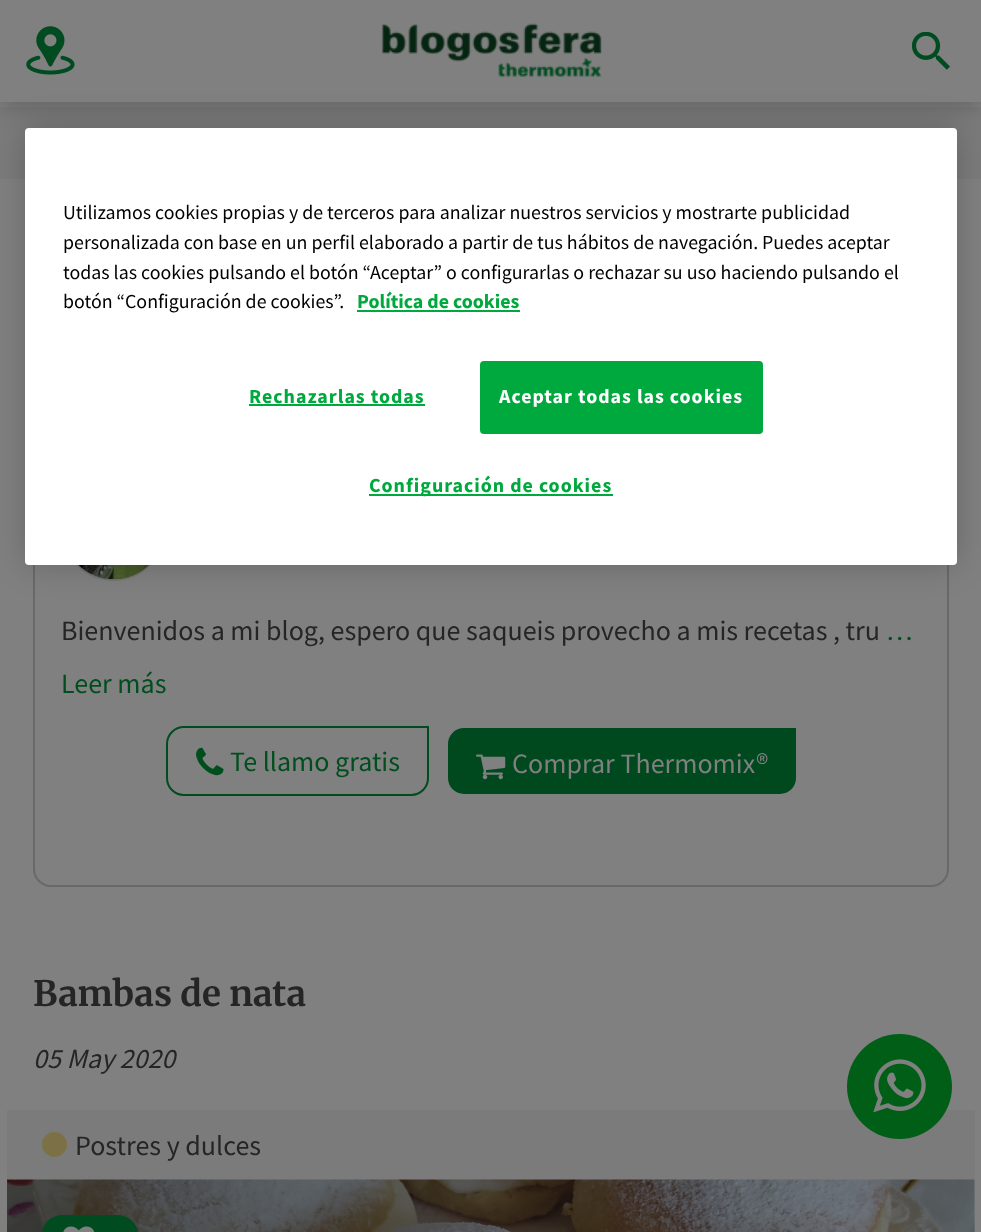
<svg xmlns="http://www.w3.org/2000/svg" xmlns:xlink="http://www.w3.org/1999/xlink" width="981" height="1232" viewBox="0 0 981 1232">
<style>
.cls-1{font:19.9px Source Sans Pro;fill:#000000}
.cls-2{font:bold 19.9px Source Sans Pro;fill:#00a93d}
.cls-3{font:bold 19.9px Source Sans Pro;letter-spacing:1px;fill:#00a93d}
.cls-4{font:bold 19.9px Source Sans Pro;letter-spacing:1px;fill:#ffffff}
.cls-5{font:28px Source Sans Pro;fill:#262526}
.cls-6{font:28px Source Sans Pro;fill:#004e1e}
.cls-7{font:28px Source Sans Pro;fill:#808080}
.cls-8{font:bold 35px Merriweather;fill:#262526}
.cls-9{font:italic 28px Source Sans Pro;fill:#262526}
</style>
<rect width="100%" height="100%" fill="#808080"/>
<rect fill="#7b7b7b" x="0" y="107" width="981" height="72"/>
<rect fill="#000000" fill-opacity="0.3" filter="blur(13px)" x="0" y="0" width="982" height="102"/>
<rect fill="#808080" x="0" y="0" width="981" height="102"/>
<image xlink:href="image0.png" x="26" y="26" width="49" height="49"/>
<image xlink:href="image1.png" x="381" y="23" width="221" height="54"/>
<image xlink:href="image2.png" x="912" y="32" width="38" height="38"/>
<rect fill="none" stroke="#696969" stroke-width="2" x="34" y="402" width="914" height="484" rx="17"/>
<circle fill="none" stroke="#757373" stroke-width="2" cx="113.5" cy="528.5" r="51.5"/>
<image xlink:href="image3.png" x="78" y="565" width="71" height="15"/>
<rect fill="#000000" fill-opacity="0.2" filter="blur(16px)" x="25" y="128" width="932" height="437" rx="4"/>
<rect fill="#ffffff" x="25" y="128" width="932" height="437" rx="4"/>
<rect fill="#00a93d" x="357" y="310" width="163" height="2"/>
<rect fill="#00a93d" x="249" y="404" width="176" height="2"/>
<rect fill="#00a93d" stroke="#00a93d" stroke-width="2" x="481" y="362" width="281" height="71" rx="3"/>
<rect fill="#00a93d" x="369" y="494" width="244" height="2"/>
<path fill="none" stroke="#004c20" stroke-width="2" d="M184 727H428V778C428 787.5 420.5 795 411 795H184C174.5 795 167 787.5 167 778V744C167 734.5 174.5 727 184 727Z"/>
<image xlink:href="image4.png" x="196" y="747" width="28" height="29"/>
<path fill="#00491f" stroke="#808080" stroke-width="2" d="M464 727H797V778C797 787.5 789.5 795 780 795H464C454.5 795 447 787.5 447 778V744C447 734.5 454.5 727 464 727Z"/>
<image xlink:href="image5.png" x="476" y="754" width="30" height="26"/>
<rect fill="#7b7b7b" x="7" y="1110" width="968" height="70"/>
<circle fill="#7c7146" cx="54.5" cy="1144.5" r="12.5"/>
<image xlink:href="image6.png" x="7" y="1179" width="968" height="53"/>
<rect fill="#004c20" x="42" y="1215" width="96" height="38" rx="21"/>
<rect fill="#383838" fill-opacity="0.2" x="137" y="1213" width="2" height="19"/>
<image xlink:href="image7.png" x="63" y="1226" width="32" height="6"/>
<circle fill="#005e17" cx="899.5" cy="1086.5" r="52.5"/>
<image xlink:href="image8.png" x="873" y="1059" width="53" height="54"/>
<text class="cls-1"><tspan x="63" y="219">Utilizamos cookies propias y de terceros para analizar nuestros servicios y mostrarte publicidad</tspan><tspan x="63" y="249">personalizada con base en un perfil elaborado a partir de tus hábitos de navegación. Puedes aceptar</tspan><tspan x="63" y="279">todas las cookies pulsando el botón “Aceptar” o configurarlas o rechazar su uso haciendo pulsando el</tspan><tspan x="63" y="308">botón “Configuración de cookies”.</tspan></text>
<text class="cls-2" x="357" y="308">Política de cookies</text>
<text class="cls-3" x="249" y="403">Rechazarlas todas</text>
<text class="cls-4" x="499" y="403">Aceptar todas las cookies</text>
<text class="cls-3" x="369" y="492">Configuración de cookies</text>
<text class="cls-5" x="61" y="640">Bienvenidos a mi blog, espero que saqueis provecho a mis recetas , tru</text>
<text class="cls-6" x="886" y="640">…</text>
<text class="cls-6" x="61" y="693">Leer más</text>
<text class="cls-6" x="230" y="771">Te llamo gratis</text>
<text class="cls-7" x="512" y="773">Comprar Thermomix®</text>
<text class="cls-8" x="33" y="1006">Bambas de nata</text>
<text class="cls-9" x="33" y="1068">05 May 2020</text>
<text class="cls-5" x="75" y="1155">Postres y dulces</text>
</svg>
